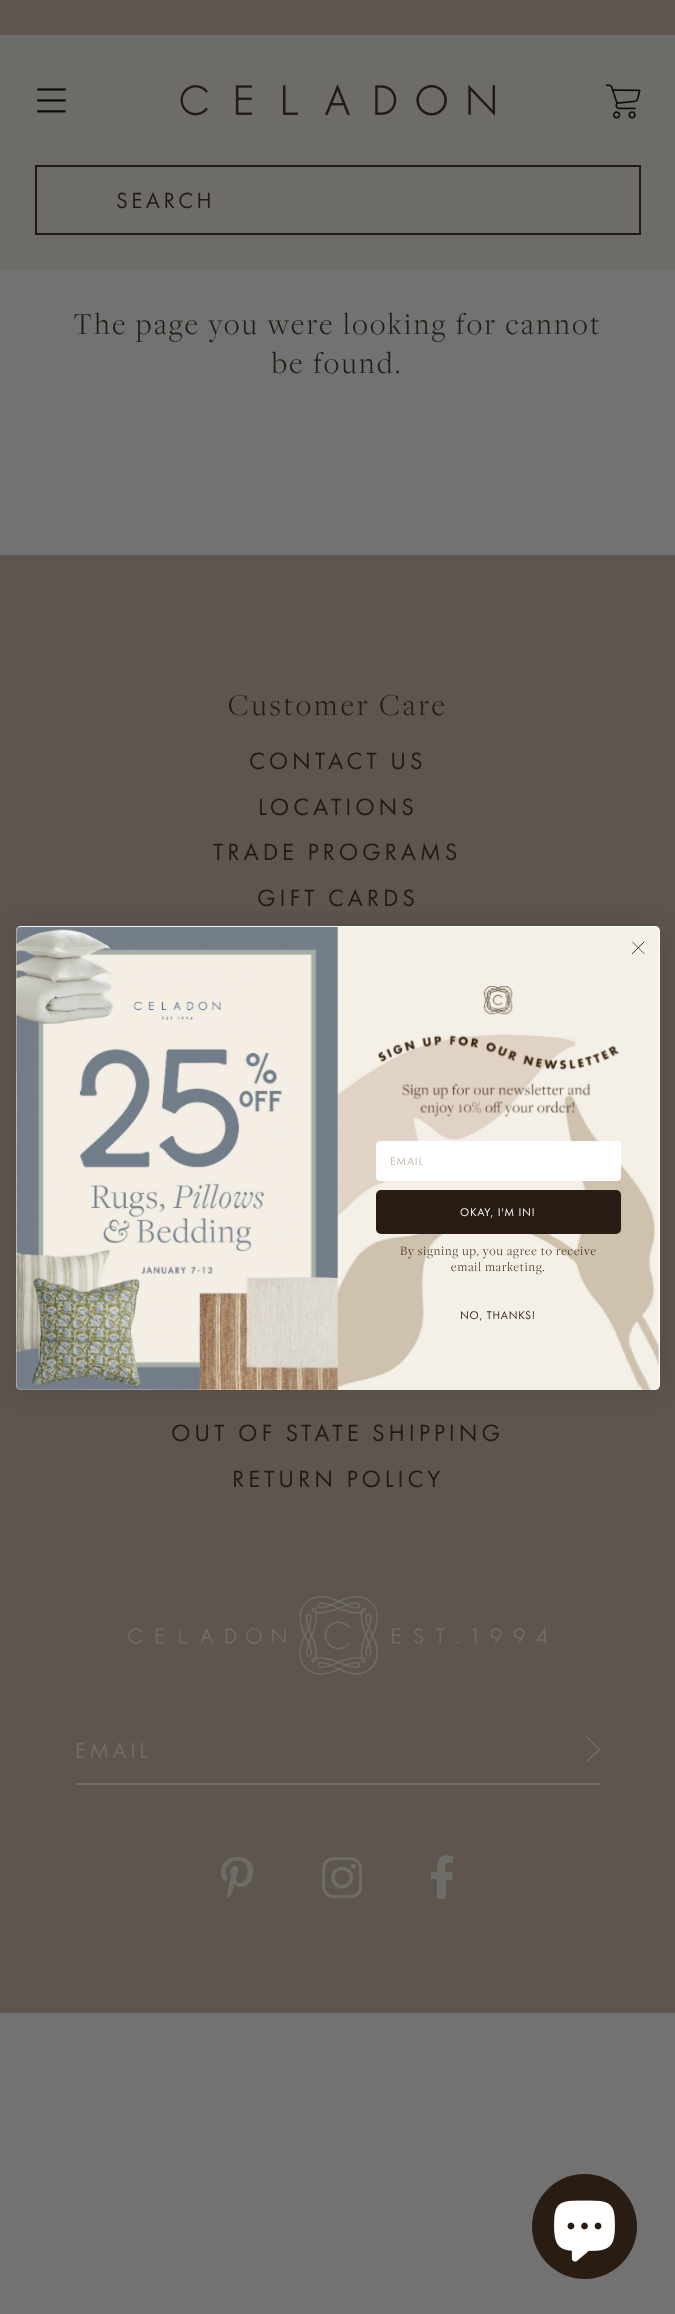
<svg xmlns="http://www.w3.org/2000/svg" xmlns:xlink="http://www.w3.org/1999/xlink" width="675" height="2314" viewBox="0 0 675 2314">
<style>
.cls-1{font:22.75px Futura PT;letter-spacing:3.5px;fill:#221b14}
.cls-2{font:300 31.5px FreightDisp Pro;letter-spacing:2.5px;fill:#221b14}
.cls-3{font:300 31.5px FreightDisp Pro;letter-spacing:3.1px;fill:#221b14}
.cls-4{font:24.5px Futura PT;letter-spacing:3.9px;fill:#221b14}
.cls-5{font:22.75px Futura PT;letter-spacing:3.5px;fill:#6e6c68}
.cls-6{font:11.5px Futura PT;letter-spacing:0.75px;fill:#ceb8a5}
.cls-7{font:11.5px Futura PT;letter-spacing:0.75px;fill:#ffffff}
.cls-8{font:300 13.2px FreightDisp Pro;letter-spacing:0.9px;fill:#37230b}
.cls-9{font:11.5px Futura PT;letter-spacing:0.75px;fill:#291c12}
</style>
<defs>
<clipPath id="clip1"><rect x="431" y="1855" width="22" height="44"/></clipPath>
</defs>
<rect width="100%" height="100%" fill="#727272"/>
<rect fill="#5e564e" x="0" y="0" width="675" height="35"/>
<rect fill="#6e6c68" x="0" y="35" width="675" height="235"/>
<image xlink:href="image0.png" x="37" y="88" width="29" height="25"/>
<image xlink:href="image1.png" x="180" y="84" width="315" height="32"/>
<image xlink:href="image2.png" x="606" y="84" width="35" height="35"/>
<rect fill="none" stroke="#221b14" stroke-width="2" x="36" y="166" width="604" height="68"/>
<rect fill="#5e564e" x="0" y="555" width="675" height="1458"/>
<image xlink:href="image3.png" x="128" y="1596" width="420" height="79"/>
<rect fill="#6e6c68" x="75" y="1783" width="525" height="2"/>
<path fill="none" stroke="#727272" stroke-width="1.1" d="M586.5 1736.5L599.5 1749.5L586.5 1762"/>
<image xlink:href="image4.png" x="221" y="1857" width="33" height="42"/>
<image xlink:href="image5.png" x="322" y="1857" width="40" height="42"/>
<g clip-path="url(#clip1)">
<path fill="#6e6c68" fill-rule="evenodd" d="M430 1872H437C437 1859 439 1853 453 1856V1863C445 1862 445 1865 445 1872H453L452 1880H446V1899H437V1879H430Z"/>
</g>
<rect fill="#000000" fill-opacity="0.15" filter="blur(12.5px)" x="16" y="926" width="644" height="464" rx="5"/>
<rect fill="#ffffff" x="16" y="926" width="644" height="464" rx="5"/>
<image xlink:href="image6.png" x="16" y="927" width="643" height="463"/>
<path fill="none" stroke="#291c12" stroke-width="0.7" stroke-linecap="round" stroke-linejoin="round" d="M632.5 942L644 953.5M632.5 953.5L644 942Z"/>
<image xlink:href="image7.png" x="16" y="926" width="322" height="464"/>
<image xlink:href="image8.png" x="378" y="986" width="242" height="131"/>
<rect fill="#ffffff" stroke="#ffffff" stroke-width="0.9" x="376.45" y="1141.45" width="244.1" height="39.1" rx="3.55"/>
<rect fill="#291c12" x="376" y="1190" width="245" height="44" rx="5"/>
<circle fill="#291c12" cx="584.5" cy="2226.5" r="52.5"/>
<image xlink:href="image9.png" x="554" y="2200" width="61" height="62"/>
<text class="cls-1" x="116" y="208">SEARCH</text>
<text class="cls-2" x="73" y="334">The page you were looking for cannot</text>
<text class="cls-2" x="272" y="373">be found.</text>
<text class="cls-3" x="228" y="715">Customer Care</text>
<text class="cls-4" x="249" y="769">CONTACT US</text>
<text class="cls-4" x="258" y="815">LOCATIONS</text>
<text class="cls-4" x="213" y="860">TRADE PROGRAMS</text>
<text class="cls-4" x="257" y="906">GIFT CARDS</text>
<text class="cls-4" x="171" y="1441">OUT OF STATE SHIPPING</text>
<text class="cls-4" x="232" y="1487">RETURN POLICY</text>
<text class="cls-5" x="75" y="1758">EMAIL</text>
<text class="cls-6" x="390" y="1165">EMAIL</text>
<text class="cls-7" x="460" y="1216">OKAY, I'M IN!</text>
<text class="cls-8" x="400" y="1255">By signing up, you agree to receive</text>
<text class="cls-8" x="451" y="1271">email marketing.</text>
<text class="cls-9" x="460" y="1319">NO, THANKS!</text>
</svg>
